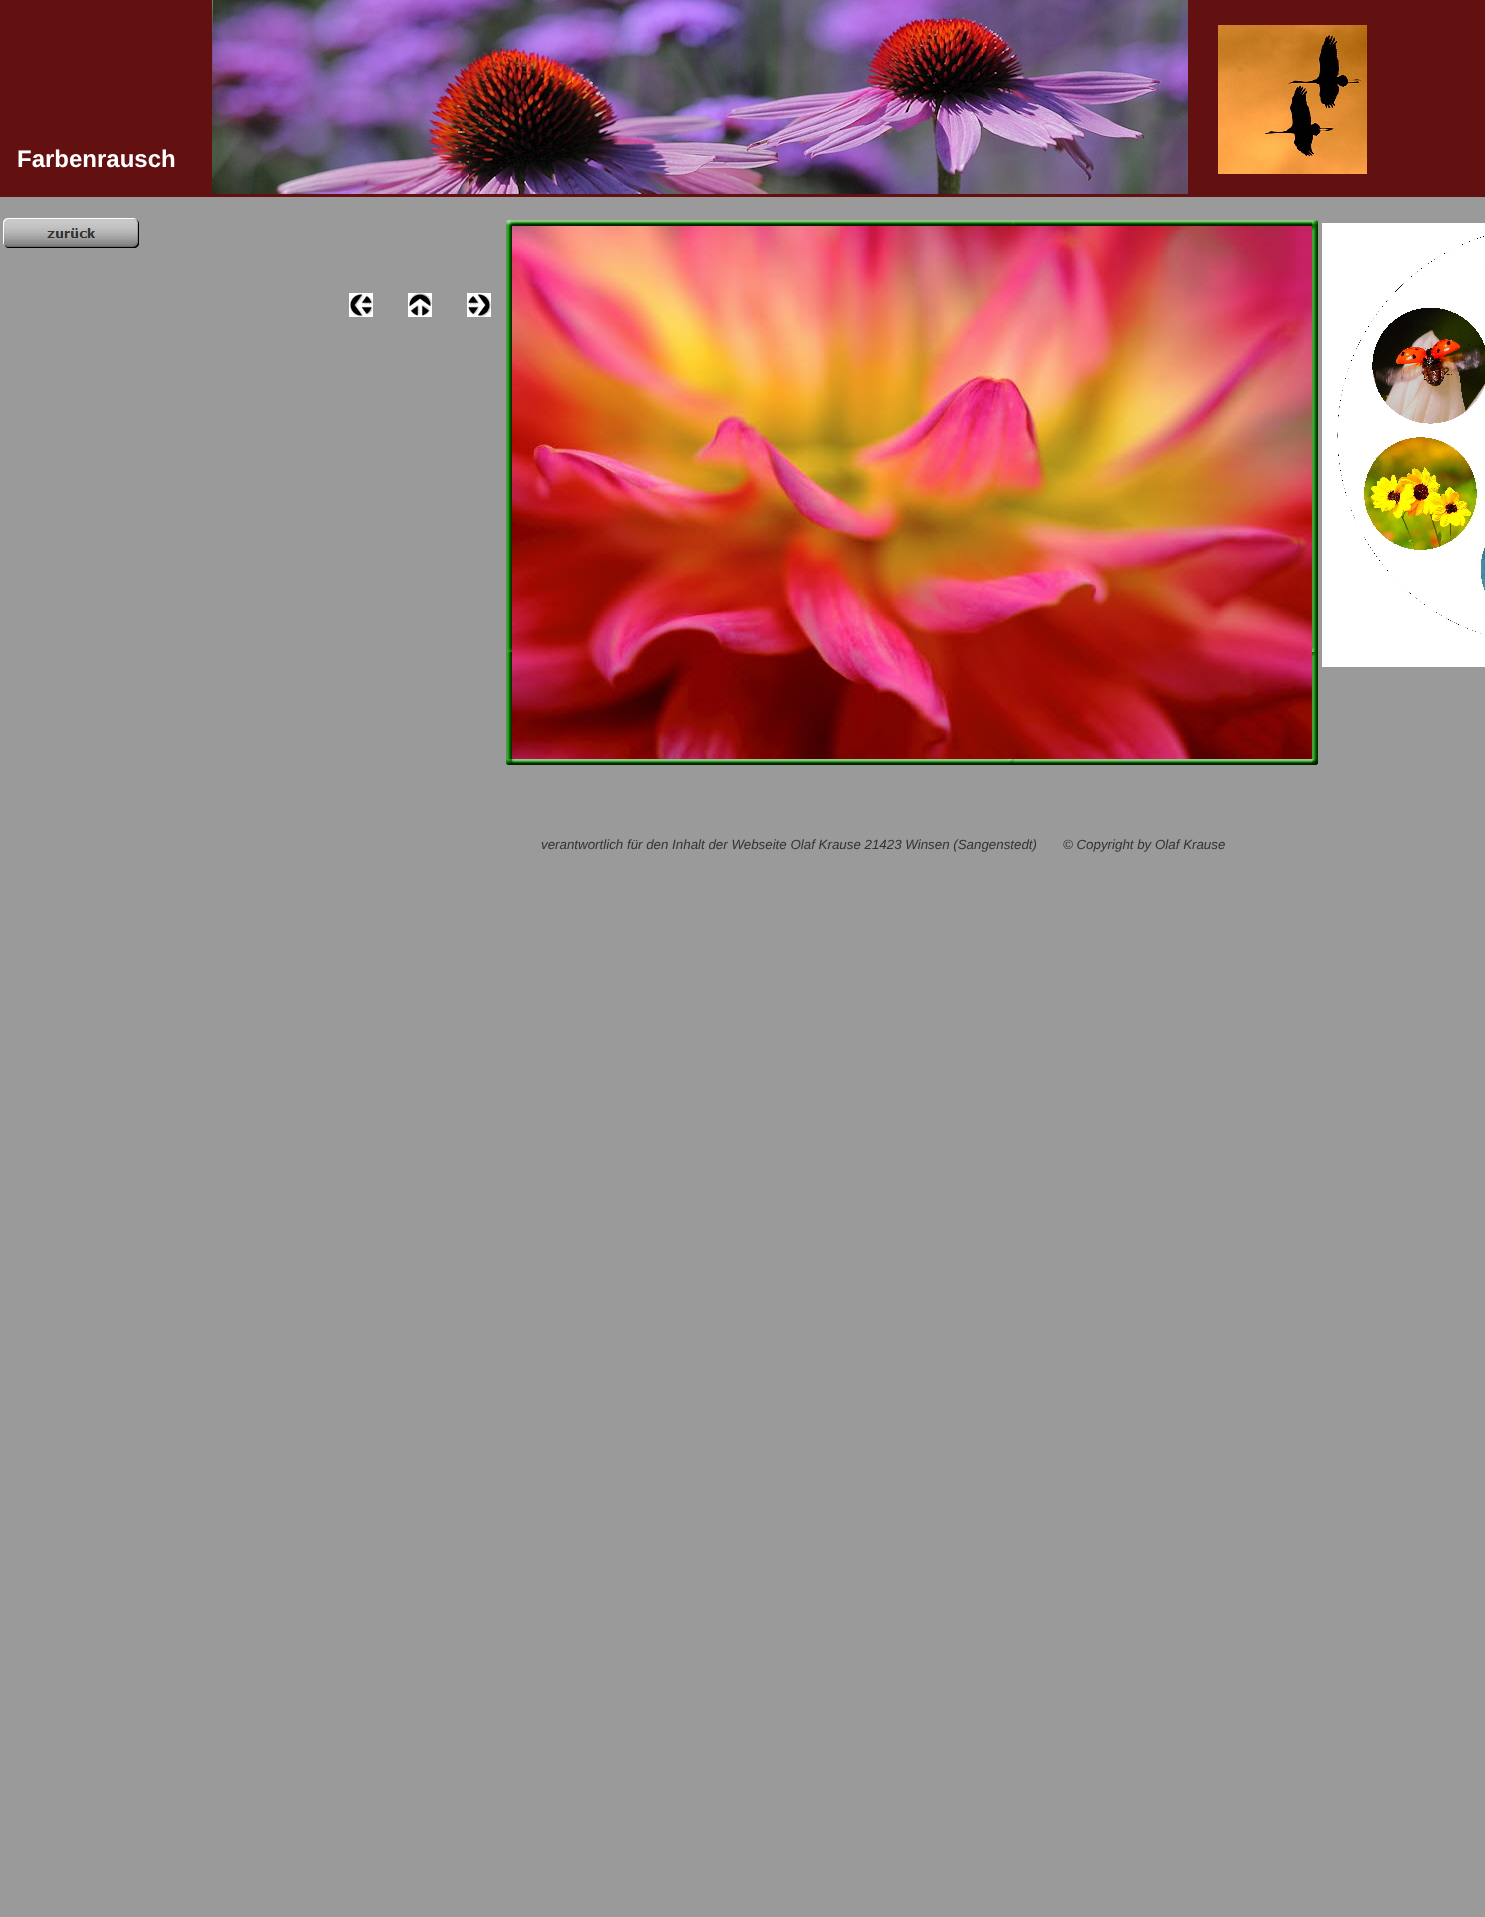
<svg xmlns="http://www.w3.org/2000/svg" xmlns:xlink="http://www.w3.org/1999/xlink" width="1485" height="1917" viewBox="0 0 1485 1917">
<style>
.cls-1{font:bold 24px Liberation Sans;fill:#ffffff}
.cls-2{font:italic 13.33px Liberation Sans;fill:#333333}
</style>
<rect width="100%" height="100%" fill="#9a9a9a"/>
<rect fill="#621010" x="0" y="0" width="1485" height="197"/>
<image xlink:href="image0.png" x="212" y="0" width="976" height="194"/>
<image xlink:href="image1.png" x="1218" y="25" width="149" height="149"/>
<image xlink:href="image2.png" x="3" y="218" width="136" height="30"/>
<image xlink:href="image3.png" x="349" y="293" width="24" height="24"/>
<image xlink:href="image4.png" x="408" y="293" width="24" height="24"/>
<image xlink:href="image5.png" x="467" y="293" width="24" height="24"/>
<image xlink:href="image6.png" x="506" y="220" width="6" height="6"/>
<image xlink:href="image7.png" x="512" y="220" width="800" height="6"/>
<image xlink:href="image8.png" x="1312" y="220" width="6" height="6"/>
<image xlink:href="image9.png" x="506" y="226" width="6" height="533"/>
<image xlink:href="image10.png" x="512" y="226" width="800" height="533"/>
<image xlink:href="image11.png" x="1312" y="226" width="6" height="533"/>
<image xlink:href="image12.png" x="506" y="759" width="6" height="6"/>
<image xlink:href="image13.png" x="512" y="759" width="800" height="6"/>
<image xlink:href="image14.png" x="1312" y="759" width="6" height="6"/>
<image xlink:href="image15.png" x="1322" y="223" width="163" height="444"/>
<text class="cls-1" x="17" y="167">Farbenrausch</text>
<text class="cls-2" xml:space="preserve" x="541" y="849">verantwortlich für den Inhalt der Webseite Olaf Krause 21423 Winsen (Sangenstedt)       © Copyright by Olaf Krause</text>
</svg>
